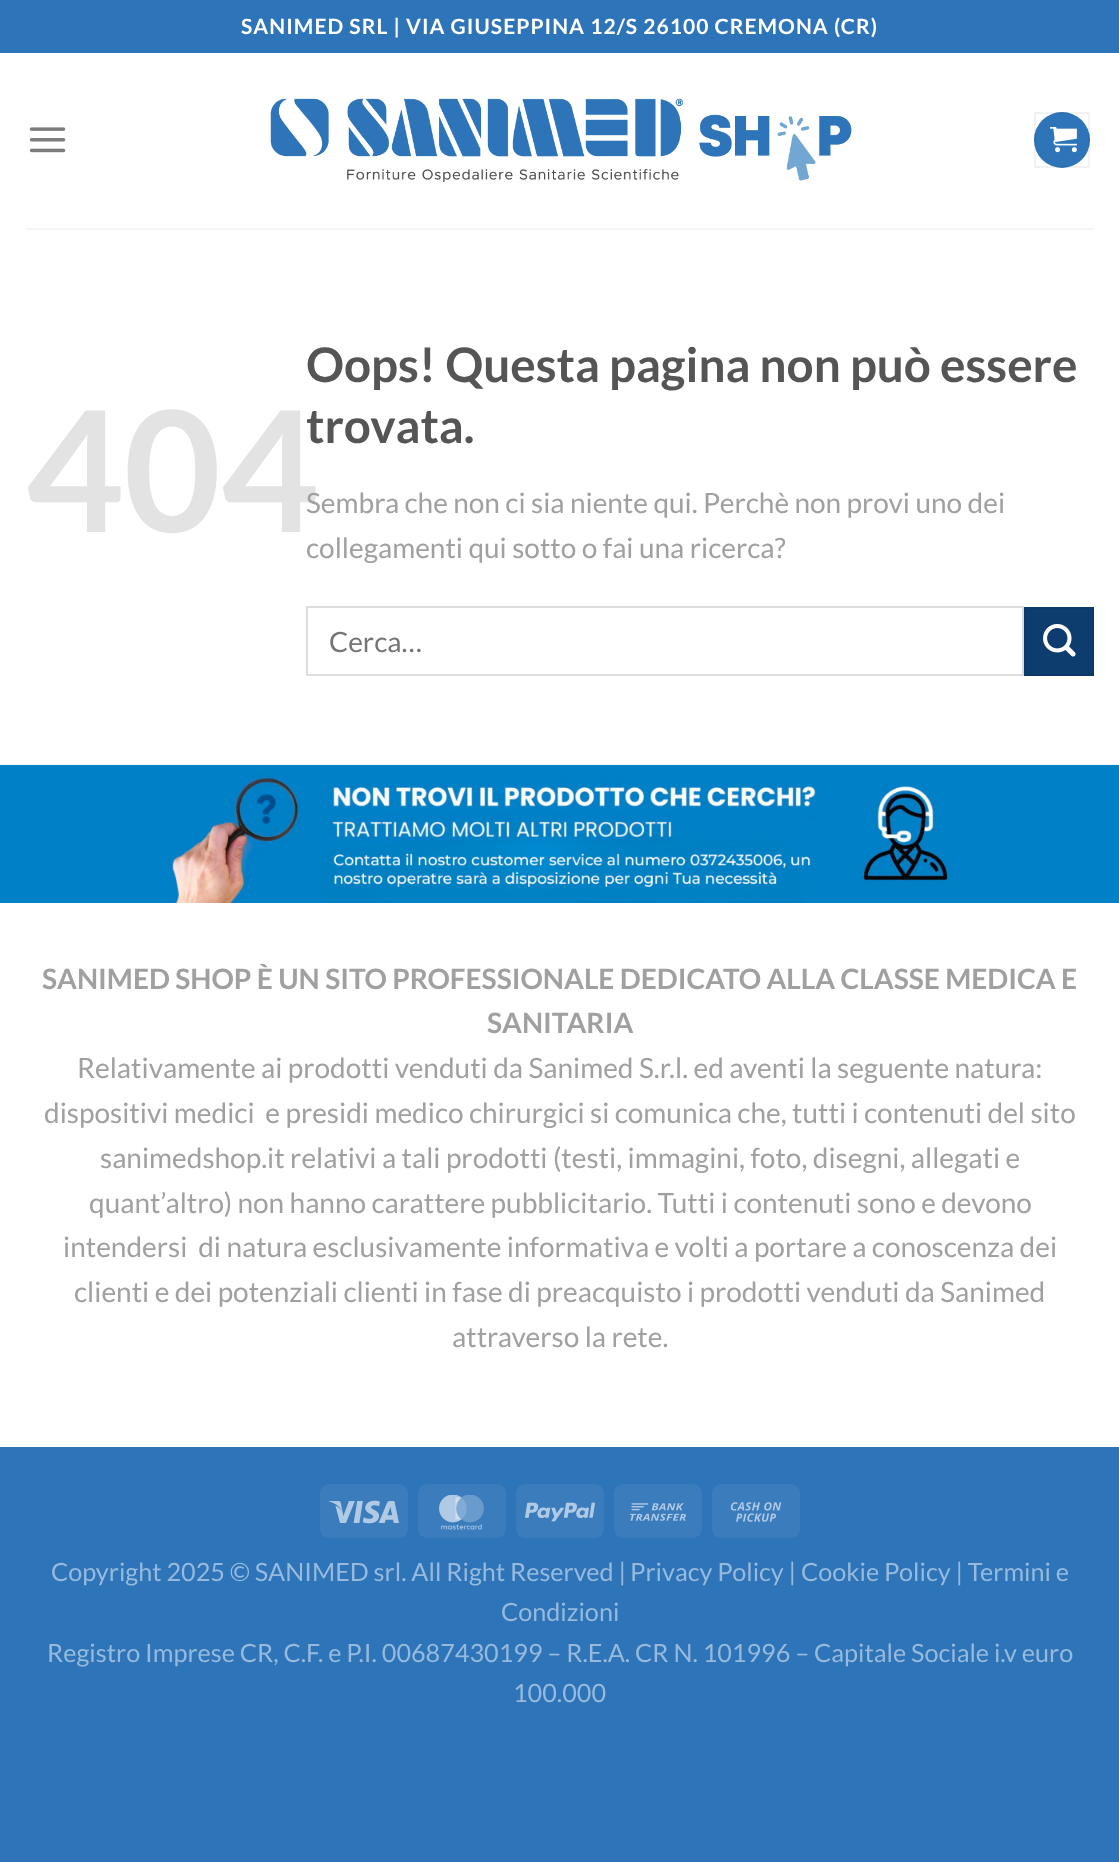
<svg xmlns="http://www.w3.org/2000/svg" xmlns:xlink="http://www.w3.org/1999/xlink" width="1119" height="1862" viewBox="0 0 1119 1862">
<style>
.cls-1{font:bold 21px Lato;letter-spacing:1.05px;fill:#ffffff}
.cls-2{font:bold 168px Lato;fill:#e3e3e3}
.cls-3{font:bold 47.6px Lato;fill:#555555}
.cls-4{font:28px Lato;fill:#a0a0a0}
.cls-5{font:28px Lato;fill:#757575}
.cls-6{font:bold 28px Lato;fill:#a0a0a0}
.cls-7{font:25.2px Lato;fill:#97badc}
</style>
<rect width="100%" height="100%" fill="#2e74b9"/>
<rect fill="#ffffff" x="0" y="53" width="1119" height="1394"/>
<image xlink:href="image0.png" x="29" y="127" width="37" height="26"/>
<image xlink:href="image1.png" x="270" y="98" width="582" height="84"/>
<circle fill="#2e74b9" cx="1062" cy="140" r="28"/>
<rect fill="none" stroke="#000000" stroke-opacity="0.05" stroke-width="2" x="1035" y="113" width="54" height="54"/>
<image xlink:href="image2.png" x="1050" y="127" width="27" height="26"/>
<rect fill="#f6f6f6" x="26" y="228" width="1068" height="2"/>
<rect fill="none" stroke="#dddddd" stroke-width="2" x="307" y="607" width="716" height="68"/>
<rect fill="#0c3d6e" stroke="#0b3a69" stroke-width="2" x="1025" y="608" width="68" height="67"/>
<image xlink:href="image3.png" x="1043" y="623" width="33" height="34"/>
<image xlink:href="image4.png" x="0" y="764" width="1119" height="139"/>
<rect fill="#3b7cbd" x="320" y="1484" width="88" height="54" rx="9"/>
<image xlink:href="image5.png" x="329" y="1500" width="70" height="24"/>
<rect fill="#3b7cbd" x="418" y="1484" width="88" height="54" rx="9"/>
<image xlink:href="image6.png" x="439" y="1495" width="45" height="35"/>
<rect fill="#3b7cbd" x="516" y="1484" width="88" height="54" rx="9"/>
<image xlink:href="image7.png" x="525" y="1502" width="70" height="20"/>
<rect fill="#3b7cbd" x="614" y="1484" width="88" height="54" rx="9"/>
<image xlink:href="image8.png" x="630" y="1503" width="56" height="18"/>
<rect fill="#3b7cbd" x="712" y="1484" width="88" height="54" rx="9"/>
<image xlink:href="image9.png" x="730" y="1502" width="52" height="20"/>
<text class="cls-1" x="241" y="34">SANIMED SRL | VIA GIUSEPPINA 12/S 26100 CREMONA (CR)</text>
<text class="cls-2" x="26" y="532">404</text>
<text class="cls-3"><tspan x="306" y="382">Oops! Questa pagina non può essere</tspan><tspan x="306" y="443">trovata.</tspan></text>
<text class="cls-4"><tspan x="306" y="513">Sembra che non ci sia niente qui. Perchè non provi uno dei</tspan><tspan x="306" y="558">collegamenti qui sotto o fai una ricerca?</tspan></text>
<text class="cls-5" x="329" y="652">Cerca…</text>
<text class="cls-6" x="42" y="989">SANIMED SHOP È UN SITO PROFESSIONALE DEDICATO ALLA CLASSE MEDICA E</text>
<text class="cls-6" x="487" y="1033">SANITARIA</text>
<text class="cls-4" x="77" y="1078">Relativamente ai prodotti venduti da Sanimed S.r.l. ed aventi la seguente natura:</text>
<text class="cls-4" xml:space="preserve" x="44" y="1123">dispositivi medici  e presidi medico chirurgici si comunica che, tutti i contenuti del sito</text>
<text class="cls-4" x="100" y="1168">sanimedshop.it relativi a tali prodotti (testi, immagini, foto, disegni, allegati e</text>
<text class="cls-4" x="89" y="1213">quant’altro) non hanno carattere pubblicitario. Tutti i contenuti sono e devono</text>
<text class="cls-4" xml:space="preserve" x="63" y="1257">intendersi  di natura esclusivamente informativa e volti a portare a conoscenza dei</text>
<text class="cls-4" x="74" y="1302">clienti e dei potenziali clienti in fase di preacquisto i prodotti venduti da Sanimed</text>
<text class="cls-4" x="452" y="1347">attraverso la rete.</text>
<text class="cls-7" x="51" y="1581">Copyright 2025 © SANIMED srl. All Right Reserved |</text>
<text class="cls-7" x="630" y="1581">Privacy Policy | Cookie Policy | Termini e</text>
<text class="cls-7" x="501" y="1621">Condizioni</text>
<text class="cls-7" x="47" y="1662">Registro Imprese CR, C.F. e P.I. 00687430199 – R.E.A. CR N. 101996 – Capitale Sociale i.v euro</text>
<text class="cls-7" x="513" y="1702">100.000</text>
</svg>
